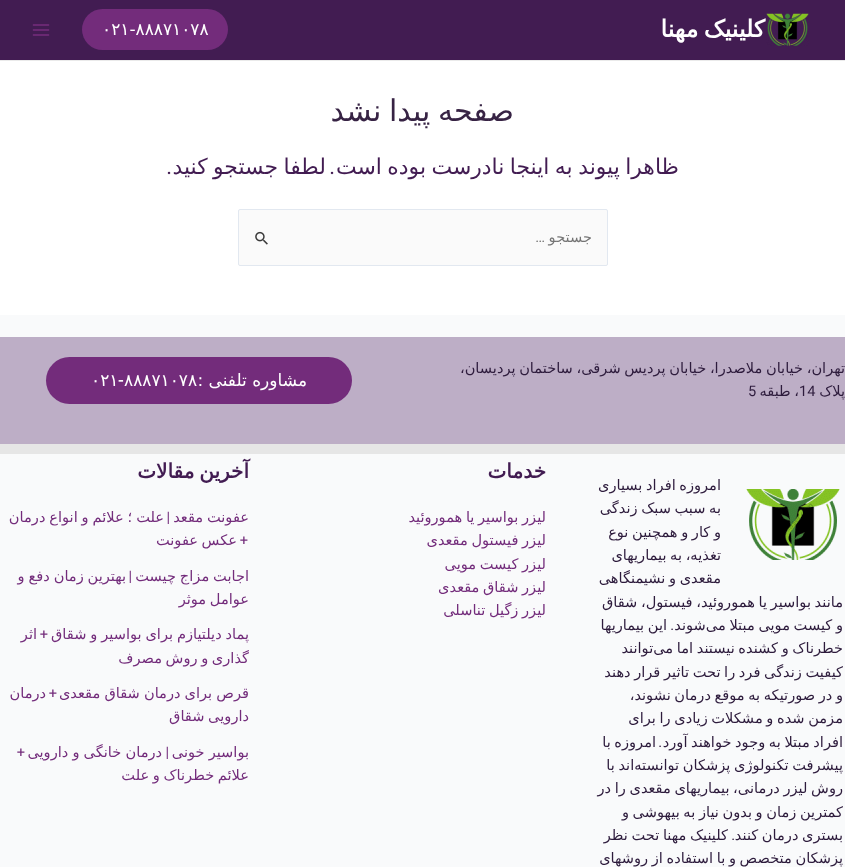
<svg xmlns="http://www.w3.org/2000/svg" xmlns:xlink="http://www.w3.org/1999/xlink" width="845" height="867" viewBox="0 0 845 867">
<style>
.cls-1{font:bold 23.5px DejaVu Sans;direction:rtl;fill:#ffffff}
.cls-2{font:17px DejaVu Sans;fill:#ffffff}
.cls-3{font:30px DejaVu Sans;direction:rtl;fill:#372344}
.cls-4{font:21.9px DejaVu Sans;direction:rtl;fill:#421c52}
.cls-5{font:21.9px Roboto;direction:rtl;fill:#421c52}
.cls-6{font:14.6px DejaVu Sans;direction:rtl;fill:#757575}
.cls-7{font:14.6px Roboto;direction:rtl;fill:#757575}
.cls-8{font:14.6px DejaVu Sans;direction:rtl;fill:#2d1b3c}
.cls-9{font:14.6px Roboto;fill:#2d1b3c}
.cls-10{font:17px DejaVu Sans;direction:rtl;fill:#ffffff}
.cls-11{font:500 17px Roboto;fill:#ffffff}
.cls-12{font:14.6px Roboto;direction:rtl;fill:#2d1b3c}
.cls-13{font:bold 20px DejaVu Sans;direction:rtl;fill:#421c52}
.cls-14{font:14.6px DejaVu Sans;direction:rtl;fill:#732c7b}
.cls-15{font:14.6px Roboto;direction:rtl;fill:#732c7b}
</style>
<rect width="100%" height="100%" fill="#f9fafb"/>
<rect fill="#421c52" x="0" y="0" width="845" height="60"/>
<rect fill="#eaeaea" x="0" y="60" width="845" height="1"/>
<image xlink:href="image0.png" x="766" y="13" width="43" height="33"/>
<rect fill="#732c7b" x="82" y="9" width="146" height="41" rx="20.5"/>
<image xlink:href="image1.png" x="32" y="24" width="18" height="12"/>
<rect fill="#ffffff" x="0" y="61" width="845" height="254"/>
<rect fill="#fafafa" stroke="#e2e8f0" x="238.5" y="209.5" width="369" height="56" rx="1.5"/>
<image xlink:href="image2.png" x="255" y="231" width="13" height="14"/>
<rect fill="#bdaec6" x="0" y="337" width="845" height="107"/>
<rect fill="#732c7b" x="46" y="357" width="306" height="47" rx="23.5"/>
<rect fill="#e6e6e6" x="0" y="444" width="845" height="10"/>
<image xlink:href="image3.png" x="746" y="489" width="94" height="71"/>
<text class="cls-1" x="765" y="37" word-spacing="-2">کلینیک مهنا</text>
<text class="cls-2" x="102" y="35">۰۲۱-۸۸۸۷۱۰۷۸</text>
<text class="cls-3" x="514" y="121" word-spacing="-2">صفحه پیدا نشد</text>
<text class="cls-4" x="679" y="174" word-spacing="-1.5">ظاهرا پیوند به اینجا نادرست بوده است</text>
<text class="cls-5" x="335" y="174">.</text>
<text class="cls-4" x="326" y="174" word-spacing="-1.5">لطفا جستجو کنید</text>
<text class="cls-5" x="172" y="174">.</text>
<text class="cls-6" x="592" y="242">جستجو</text>
<text class="cls-7" x="545" y="242">…</text>
<text class="cls-8"><tspan x="845" y="373" word-spacing="-1">تهران، خیابان ملاصدرا، خیابان پردیس شرقی، ساختمان پردیسان،</tspan><tspan x="845" y="396">پلاک</tspan></text>
<text class="cls-9" x="799" y="396">14</text>
<text class="cls-8" x="799" y="396" word-spacing="-1">، طبقه</text>
<text class="cls-9" x="748" y="396">5</text>
<text class="cls-10" x="307" y="386">مشاوره تلفنی :</text>
<text class="cls-2" x="124" y="386">۸۸۸۷۱۰۷۸</text>
<text class="cls-11" x="118" y="386">-</text>
<text class="cls-2" x="91" y="386">۰۲۱</text>
<text class="cls-8"><tspan x="721" y="490" word-spacing="-1">امروزه افراد بسیاری</tspan><tspan x="721" y="513" word-spacing="-1">به سبب سبک زندگی</tspan><tspan x="721" y="537" word-spacing="-1">و کار و همچنین نوع</tspan><tspan x="721" y="560" word-spacing="-1">تغذیه، به بیماریهای</tspan><tspan x="721" y="583" word-spacing="-1">مقعدی و نشیمنگاهی</tspan></text>
<text class="cls-8"><tspan x="843" y="607" word-spacing="-1">مانند بواسیر یا هموروئید، فیستول، شقاق</tspan><tspan x="843" y="630" word-spacing="-1">و کیست مویی مبتلا می‌شوند</tspan></text>
<text class="cls-12" x="674" y="630">.</text>
<text class="cls-8" x="667" y="630" word-spacing="-1">این بیماریها</text>
<text class="cls-8"><tspan x="843" y="653" word-spacing="-1">خطرناک و کشنده نیستند اما می‌توانند</tspan><tspan x="843" y="677" word-spacing="-1">کیفیت زندگی فرد را تحت تاثیر قرار دهند</tspan><tspan x="843" y="700" word-spacing="-1">و در صورتیکه به موقع درمان نشوند،</tspan><tspan x="843" y="723" word-spacing="-1">مزمن شده و مشکلات زیادی را برای</tspan><tspan x="843" y="747" word-spacing="-1">افراد مبتلا به وجود خواهند آورد</tspan></text>
<text class="cls-12" x="662" y="747">.</text>
<text class="cls-8" x="656" y="747" word-spacing="-1">امروزه با</text>
<text class="cls-8"><tspan x="843" y="770" word-spacing="-1">پیشرفت تکنولوژی پزشکان توانسته‌اند با</tspan><tspan x="843" y="793" word-spacing="-1">روش لیزر درمانی، بیماریهای مقعدی را در</tspan><tspan x="843" y="817" word-spacing="-1">کمترین زمان و بدون نیاز به بیهوشی و</tspan><tspan x="843" y="840" word-spacing="-1">بستری درمان کنند</tspan></text>
<text class="cls-12" x="735" y="840">.</text>
<text class="cls-8" x="728" y="840" word-spacing="-1">کلینیک مهنا تحت نظر</text>
<text class="cls-8" x="843" y="863" word-spacing="-1">پزشکان متخصص و با استفاده از روشهای</text>
<text class="cls-13" x="546" y="478">خدمات</text>
<text class="cls-14"><tspan x="546" y="522" word-spacing="-1">لیزر بواسیر یا هموروئید</tspan><tspan x="546" y="545" word-spacing="-1">لیزر فیستول مقعدی</tspan><tspan x="546" y="569" word-spacing="-1">لیزر کیست مویی</tspan><tspan x="546" y="592" word-spacing="-1">لیزر شقاق مقعدی</tspan><tspan x="546" y="615" word-spacing="-1">لیزر زگیل تناسلی</tspan></text>
<text class="cls-13" x="249" y="478" word-spacing="-1.5">آخرین مقالات</text>
<text class="cls-14" x="249" y="522" word-spacing="-0.75">عفونت مقعد</text>
<text class="cls-15" x="170" y="522">|</text>
<text class="cls-14" x="164" y="522" word-spacing="-0.75">علت ؛ علائم و انواع درمان</text>
<text class="cls-15" x="248" y="545">+</text>
<text class="cls-14" x="237" y="545" word-spacing="-1">عکس عفونت</text>
<text class="cls-14" x="249" y="581" word-spacing="-0.75">اجابت مزاج چیست</text>
<text class="cls-15" x="132" y="581">|</text>
<text class="cls-14" x="126" y="581" word-spacing="-0.75">بهترین زمان دفع و</text>
<text class="cls-14" x="249" y="604" word-spacing="-1">عوامل موثر</text>
<text class="cls-14" x="249" y="639" word-spacing="-0.75">پماد دیلتیازم برای بواسیر و شقاق</text>
<text class="cls-15" x="48" y="639">+</text>
<text class="cls-14" x="37" y="639">اثر</text>
<text class="cls-14" x="249" y="663" word-spacing="-1">گذاری و روش مصرف</text>
<text class="cls-14" x="249" y="698" word-spacing="-0.5">قرص برای درمان شقاق مقعدی</text>
<text class="cls-15" x="57" y="698">+</text>
<text class="cls-14" x="46" y="698">درمان</text>
<text class="cls-14" x="249" y="721" word-spacing="-1">دارویی شقاق</text>
<text class="cls-14" x="249" y="757" word-spacing="-0.5">بواسیر خونی</text>
<text class="cls-15" x="169" y="757">|</text>
<text class="cls-14" x="162" y="757" word-spacing="-0.5">درمان خانگی و دارویی</text>
<text class="cls-15" x="25" y="757">+</text>
<text class="cls-14" x="249" y="780" word-spacing="-1">علائم خطرناک و علت</text>
</svg>
